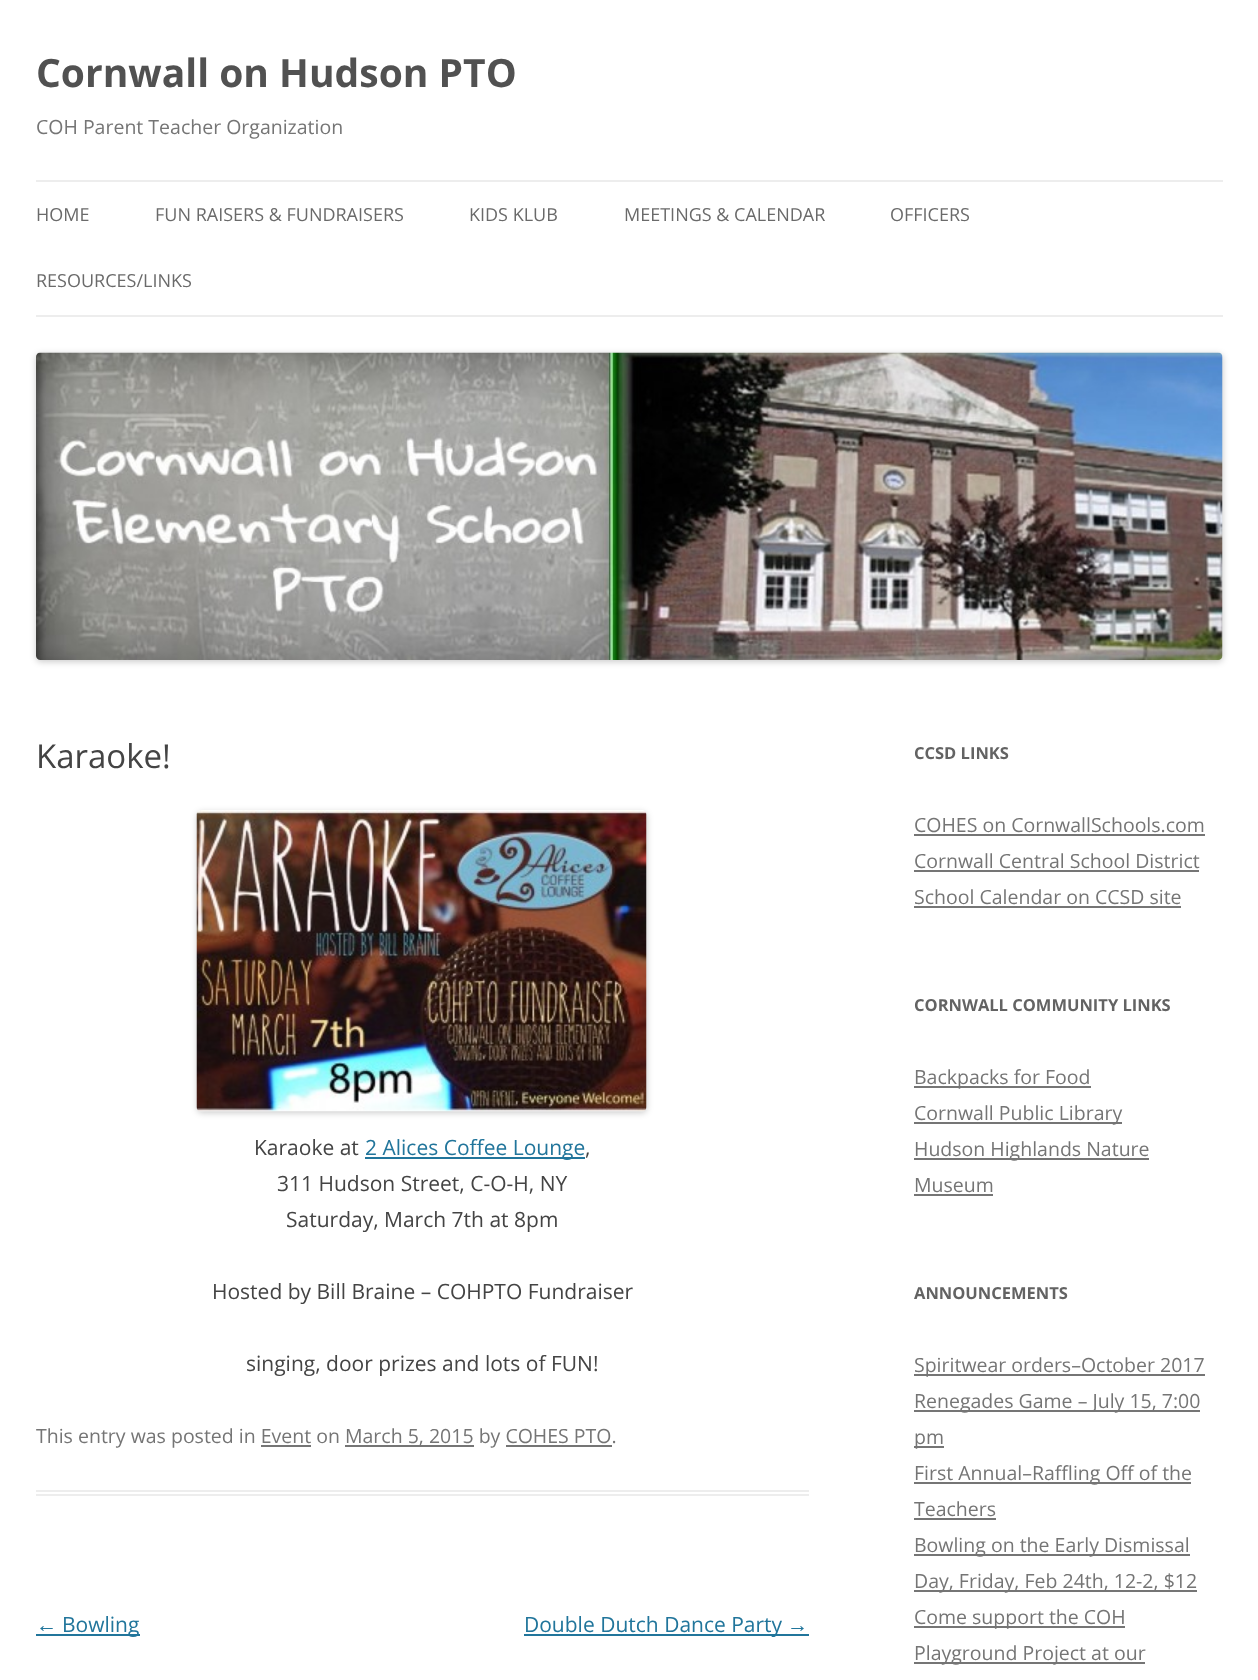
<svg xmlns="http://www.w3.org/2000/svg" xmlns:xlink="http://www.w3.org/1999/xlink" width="1258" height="1680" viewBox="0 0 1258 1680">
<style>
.cls-1{font:bold 39px Open Sans;fill:#515151}
.cls-2{font:19.5px Open Sans;fill:#757575}
.cls-3{font:18px Open Sans;fill:#6a6a6a}
.cls-4{font:33px Open Sans;fill:#444444}
.cls-5{font:21px Open Sans;fill:#444444}
.cls-6{font:21px Open Sans;fill:#21759b}
.cls-7{font:21px Liberation Sans;fill:#21759b}
.cls-8{font:bold 16.5px Open Sans;fill:#636363}
</style>
<rect width="100%" height="100%" fill="#ffffff"/>
<rect fill="#ededed" x="36" y="180" width="1187" height="2"/>
<rect fill="#ededed" x="36" y="315" width="1187" height="2"/>
<rect fill="#000000" fill-opacity="0.2" filter="blur(3px)" x="36" y="354" width="1187" height="308" rx="5"/>
<image xlink:href="image0.png" x="36" y="352" width="1187" height="308"/>
<rect fill="#ededed" x="36" y="1490" width="773" height="2"/>
<rect fill="#ededed" x="36" y="1494" width="773" height="2"/>
<rect fill="#000000" fill-opacity="0.2" filter="blur(3px)" x="197" y="812" width="450" height="301" rx="5"/>
<image xlink:href="image1.png" x="196" y="810" width="451" height="302"/>
<rect fill="#21759b" x="365" y="1157" width="220" height="2"/>
<rect fill="#757575" x="345" y="1445" width="129" height="2"/>
<rect fill="#757575" x="261" y="1445" width="50" height="2"/>
<rect fill="#757575" x="506" y="1445" width="106" height="2"/>
<rect fill="#21759b" x="36" y="1634" width="104" height="2"/>
<rect fill="#21759b" x="524" y="1634" width="285" height="2"/>
<rect fill="#757575" x="914" y="834" width="291" height="2"/>
<rect fill="#757575" x="914" y="870" width="285" height="2"/>
<rect fill="#757575" x="914" y="906" width="267" height="2"/>
<rect fill="#757575" x="914" y="1086" width="177" height="2"/>
<rect fill="#757575" x="914" y="1122" width="208" height="2"/>
<rect fill="#757575" x="914" y="1158" width="235" height="2"/>
<rect fill="#757575" x="914" y="1194" width="79" height="2"/>
<rect fill="#757575" x="914" y="1374" width="291" height="2"/>
<rect fill="#757575" x="914" y="1410" width="286" height="2"/>
<rect fill="#757575" x="914" y="1446" width="30" height="2"/>
<rect fill="#757575" x="914" y="1482" width="277" height="2"/>
<rect fill="#757575" x="914" y="1518" width="82" height="2"/>
<rect fill="#757575" x="914" y="1554" width="276" height="2"/>
<rect fill="#757575" x="914" y="1590" width="283" height="2"/>
<rect fill="#757575" x="914" y="1626" width="211" height="2"/>
<rect fill="#757575" x="914" y="1662" width="231" height="2"/>
<text class="cls-1" x="36" y="87">Cornwall on Hudson PTO</text>
<text class="cls-2" x="36" y="134">COH Parent Teacher Organization</text>
<text class="cls-3" x="36" y="221">HOME</text>
<text class="cls-3" x="155" y="221">FUN RAISERS &amp; FUNDRAISERS</text>
<text class="cls-3" x="469" y="221">KIDS KLUB</text>
<text class="cls-3" x="624" y="221">MEETINGS &amp; CALENDAR</text>
<text class="cls-3" x="890" y="221">OFFICERS</text>
<text class="cls-3" x="36" y="287">RESOURCES/LINKS</text>
<text class="cls-4" x="36" y="768">Karaoke!</text>
<text class="cls-5" x="254" y="1155">Karaoke at</text>
<text class="cls-6" x="365" y="1155">2 Alices Coffee Lounge</text>
<text class="cls-5" x="585" y="1155">,</text>
<text class="cls-5" x="277" y="1191">311 Hudson Street, C-O-H, NY</text>
<text class="cls-5" x="286" y="1227">Saturday, March 7th at 8pm</text>
<text class="cls-5" x="212" y="1299">Hosted by Bill Braine – COHPTO Fundraiser</text>
<text class="cls-5" x="246" y="1371">singing, door prizes and lots of FUN!</text>
<text class="cls-2" x="36" y="1443">This entry was posted in Event on</text>
<text class="cls-2" x="345" y="1443">March 5, 2015 by COHES PTO.</text>
<text class="cls-7" x="36" y="1632">←</text>
<text class="cls-6" x="62" y="1632">Bowling</text>
<text class="cls-6" x="524" y="1632">Double Dutch Dance Party</text>
<text class="cls-7" x="787" y="1632">→</text>
<text class="cls-8" x="914" y="759">CCSD LINKS</text>
<text class="cls-2"><tspan x="914" y="832">COHES on CornwallSchools.com</tspan><tspan x="914" y="868">Cornwall Central School District</tspan><tspan x="914" y="904">School Calendar on CCSD site</tspan></text>
<text class="cls-8" x="914" y="1011">CORNWALL COMMUNITY LINKS</text>
<text class="cls-2"><tspan x="914" y="1084">Backpacks for Food</tspan><tspan x="914" y="1120">Cornwall Public Library</tspan><tspan x="914" y="1156">Hudson Highlands Nature</tspan><tspan x="914" y="1192">Museum</tspan></text>
<text class="cls-8" x="914" y="1299">ANNOUNCEMENTS</text>
<text class="cls-2"><tspan x="914" y="1372">Spiritwear orders–October 2017</tspan><tspan x="914" y="1408">Renegades Game – July 15, 7:00</tspan><tspan x="914" y="1444">pm</tspan><tspan x="914" y="1480">First Annual–Raffling Off of the</tspan><tspan x="914" y="1516">Teachers</tspan><tspan x="914" y="1552">Bowling on the Early Dismissal</tspan><tspan x="914" y="1588">Day, Friday, Feb 24th, 12-2, $12</tspan><tspan x="914" y="1624">Come support the COH</tspan><tspan x="914" y="1660">Playground Project at our</tspan></text>
</svg>
